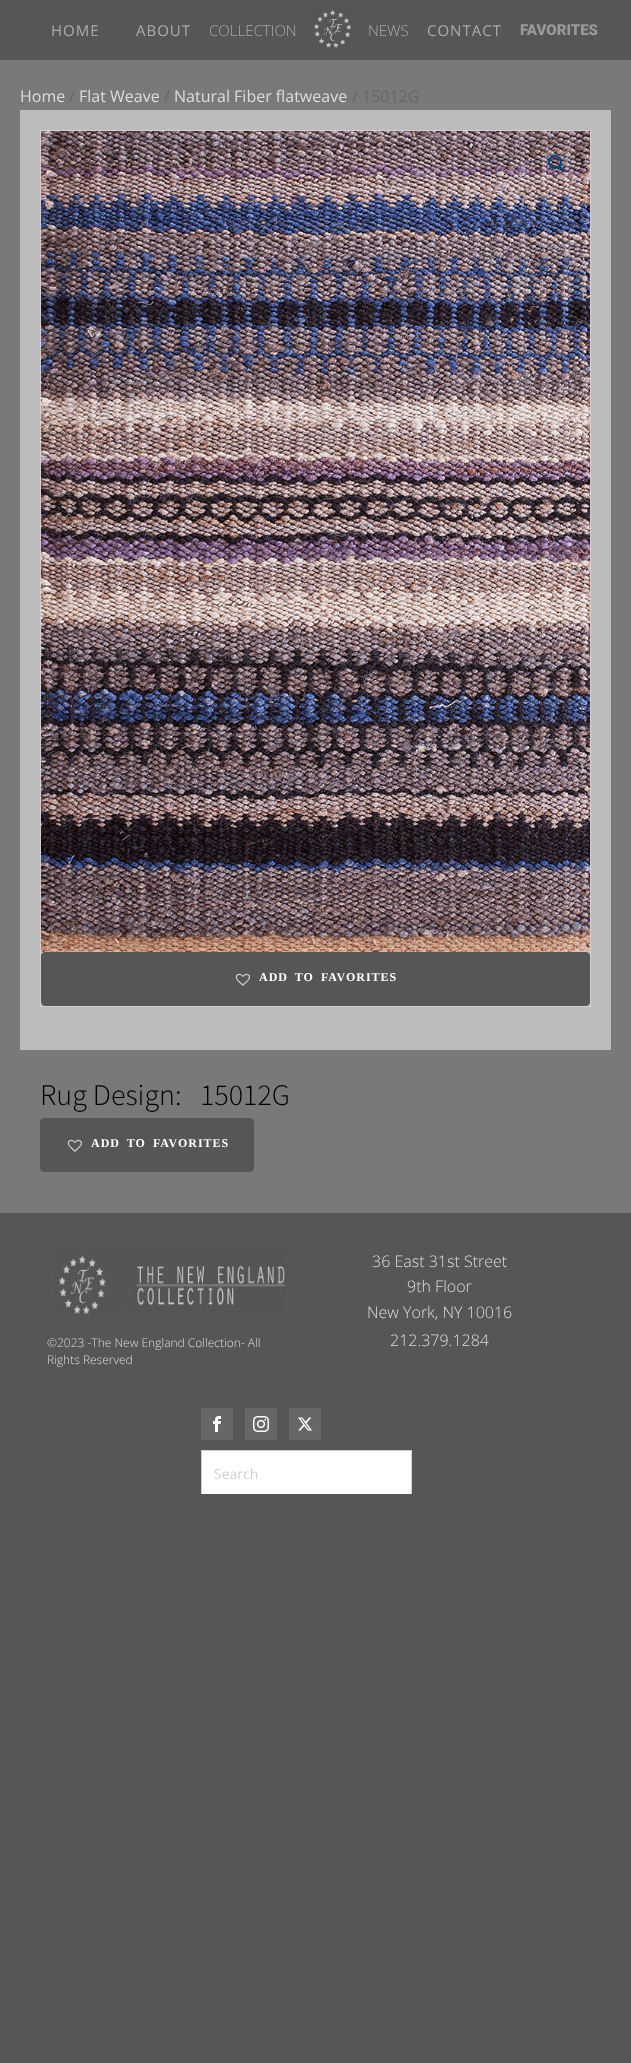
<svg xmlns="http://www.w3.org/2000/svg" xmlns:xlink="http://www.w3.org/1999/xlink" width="631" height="2063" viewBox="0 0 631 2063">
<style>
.cls-1{font:15px Open Sans;letter-spacing:1px;fill:#ababab}
.cls-2{font:300 15px Open Sans;fill:#ababab}
.cls-3{font:900 15px Roboto;fill:#999999}
.cls-4{font:16px Open Sans;fill:#dddddd}
.cls-5{font:16px Open Sans;fill:#666666}
.cls-6{font:bold 12px Liberation Serif;letter-spacing:1px;fill:#ffffff}
.cls-7{font:300 30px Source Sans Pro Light;fill:#000000}
.cls-8{font:300 16px Open Sans;fill:#dddddd}
.cls-9{font:300 12px Open Sans;fill:#dddddd}
.cls-10{font:14px Open Sans;fill:#d3ced2}
</style>
<defs>
<clipPath id="clip1"><rect x="201" y="1450" width="211" height="44"/></clipPath>
</defs>
<rect width="100%" height="100%" fill="#565656"/>
<image xlink:href="image0.png" x="314" y="10" width="37" height="38"/>
<rect fill="#7a7979" x="0" y="60" width="631" height="1153"/>
<rect fill="#bcbcbc" x="20" y="110" width="591" height="940"/>
<rect fill="none" stroke="#d3ced2" x="40.5" y="130.5" width="550" height="876"/>
<image xlink:href="image1.png" x="41" y="131" width="549" height="821"/>
<circle fill="none" stroke="#004482" stroke-width="2" cx="555" cy="162" r="6"/>
<path fill="#004482" d="M559 166C560.5 164.5 562 167.5 562.5 168C563.5 168.5 566 170 565 171.5C563.5 172.5 562 170 561.5 169.5C560.5 168.5 558 167 559 166Z"/>
<rect fill="#565656" stroke="#565656" x="41.5" y="952.5" width="548" height="53" rx="3.5"/>
<image xlink:href="image2.png" x="235" y="973" width="15" height="13"/>
<rect fill="#565656" stroke="#565656" x="40.5" y="1118.5" width="213" height="53" rx="3.5"/>
<image xlink:href="image2.png" x="67" y="1139" width="15" height="13"/>
<image xlink:href="image3.png" x="55" y="1249" width="231" height="66"/>
<rect fill="#676767" x="201" y="1408" width="32" height="32"/>
<image xlink:href="image4.png" x="213" y="1416" width="8" height="16"/>
<rect fill="#676767" x="245" y="1408" width="32" height="32"/>
<image xlink:href="image5.png" x="253" y="1416" width="16" height="16"/>
<rect fill="#676767" x="289" y="1408" width="32" height="32"/>
<image xlink:href="image6.png" x="298" y="1417" width="15" height="14"/>
<rect fill="#ffffff" x="202" y="1451" width="209" height="43"/>
<g clip-path="url(#clip1)">
<rect fill="none" stroke="#d3ced2" x="201.5" y="1450.5" width="210" height="47"/>
</g>
<text class="cls-1" x="51" y="36">HOME</text>
<text class="cls-1" x="136" y="36">ABOUT</text>
<text class="cls-2" x="209" y="36">COLLECTION</text>
<text class="cls-2" x="368" y="36">NEWS</text>
<text class="cls-1" x="427" y="36">CONTACT</text>
<text class="cls-3" x="520" y="35">FAVORITES</text>
<text class="cls-4" x="20" y="102">Home</text>
<text class="cls-5" x="69" y="102">/</text>
<text class="cls-4" x="79" y="102">Flat Weave</text>
<text class="cls-5" x="164" y="102">/</text>
<text class="cls-4" x="174" y="102">Natural Fiber flatweave</text>
<text class="cls-5" x="352" y="102">/ 15012G</text>
<text class="cls-6" x="259" y="981" word-spacing="3">ADD TO FAVORITES</text>
<text class="cls-7" x="40" y="1105">Rug Design:</text>
<text class="cls-7" x="200" y="1105">15012G</text>
<text class="cls-6" x="91" y="1147" word-spacing="3">ADD TO FAVORITES</text>
<text class="cls-8" x="372" y="1267">36 East 31st Street</text>
<text class="cls-8" x="407" y="1292">9th Floor</text>
<text class="cls-8" x="367" y="1318">New York, NY 10016</text>
<text class="cls-8" x="390" y="1346">212.379.1284</text>
<text class="cls-9"><tspan x="47" y="1347">©2023 -The New England Collection- All</tspan><tspan x="47" y="1364">Rights Reserved</tspan></text>
<text class="cls-10" x="214" y="1479">Search</text>
</svg>
